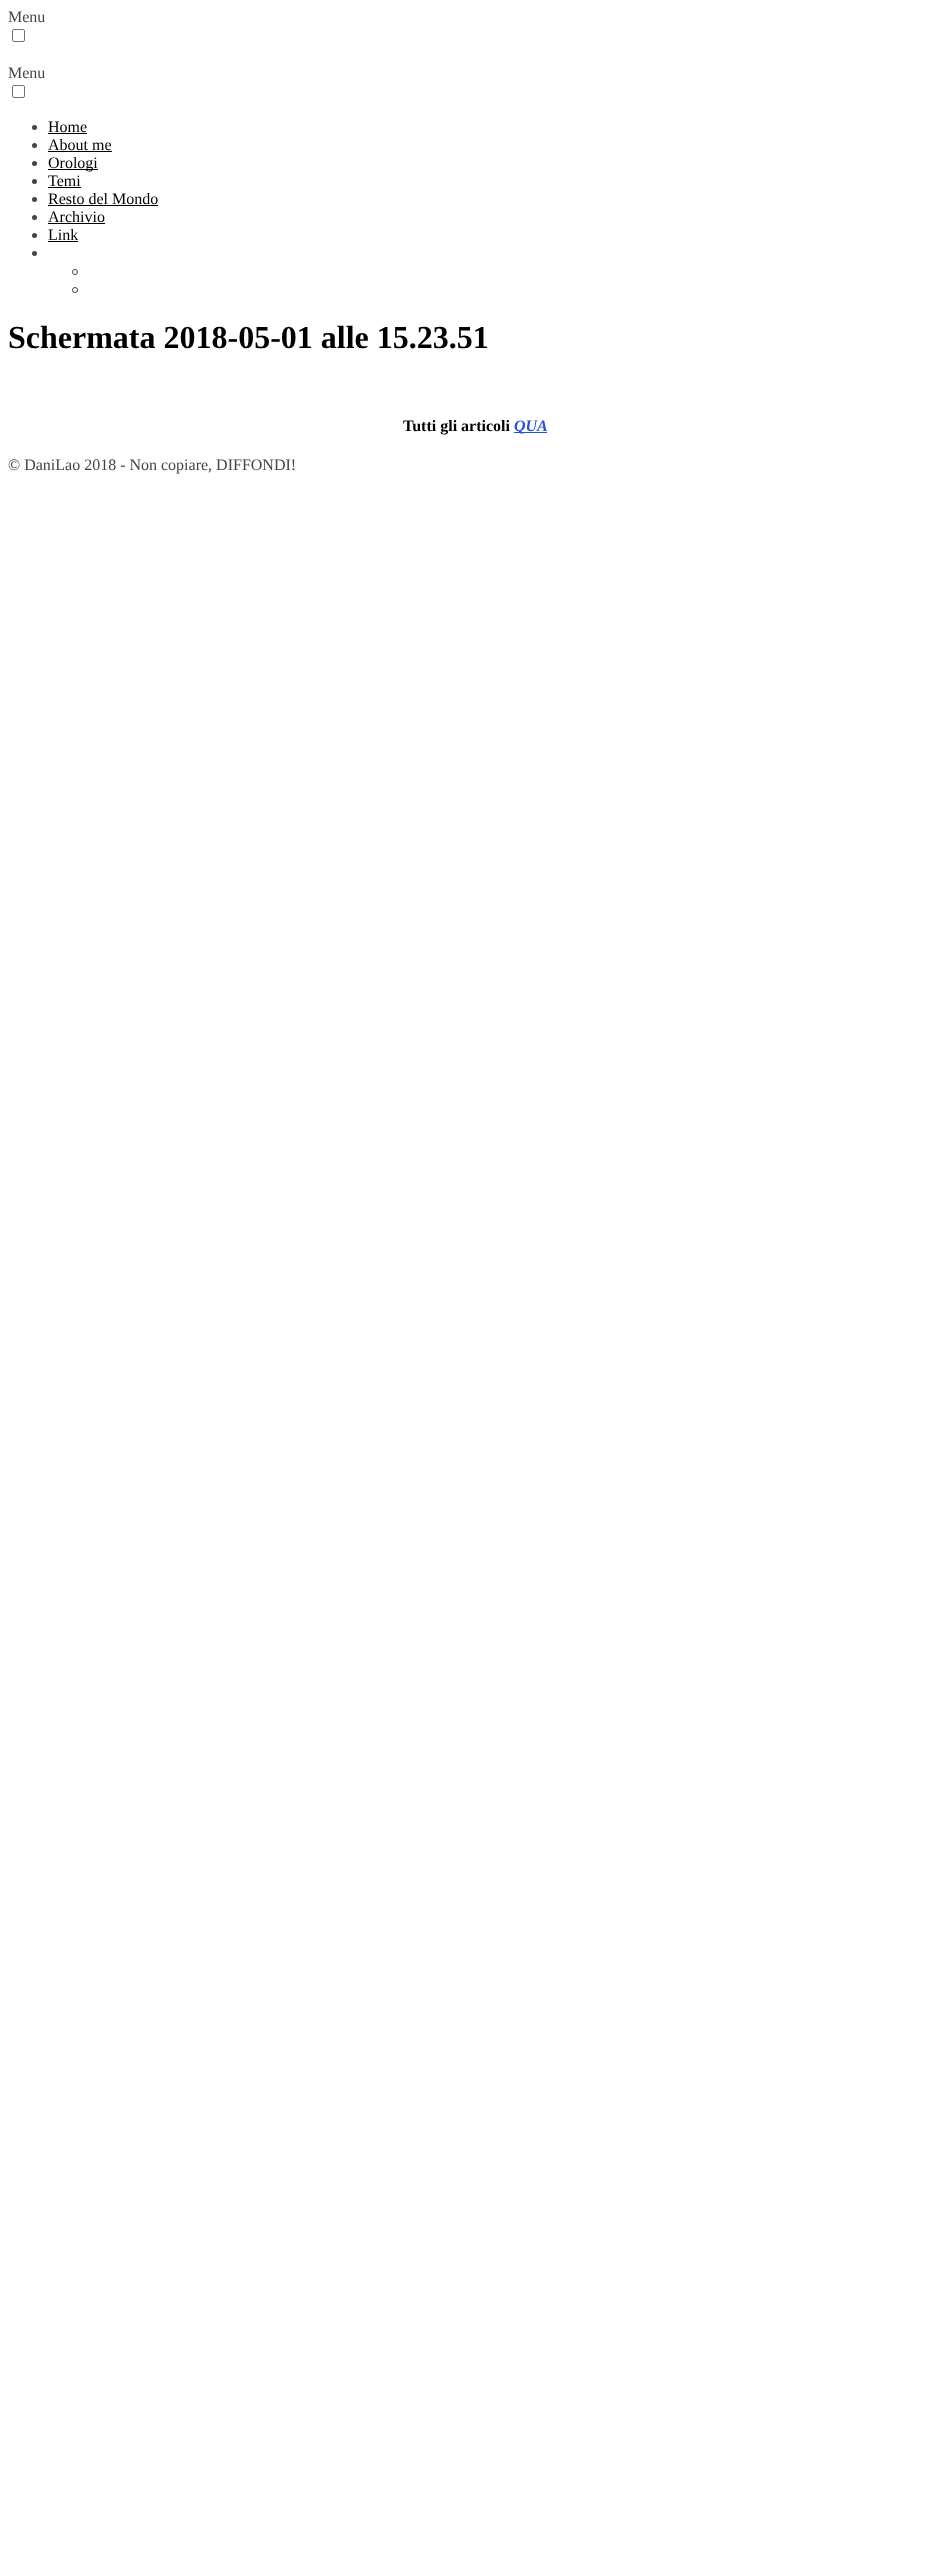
<svg xmlns="http://www.w3.org/2000/svg" xmlns:xlink="http://www.w3.org/1999/xlink" width="950" height="2561" viewBox="0 0 950 2561">
<style>
.cls-1{font:16px Liberation Serif;fill:#444444}
.cls-2{font:16px Liberation Serif;fill:#000000}
.cls-3{font:bold 32px Liberation Serif;fill:#000000}
.cls-4{font:bold 16px Liberation Serif;fill:#000000}
.cls-5{font:italic bold 16px Liberation Serif;fill:#2253d8}
</style>
<rect width="100%" height="100%" fill="#ffffff"/>
<rect fill="none" stroke="#767676" x="12.5" y="29.5" width="12" height="12" rx="1.5"/>
<rect fill="none" stroke="#767676" x="12.5" y="85.5" width="12" height="12" rx="1.5"/>
<circle fill="#444444" cx="34.5" cy="127.5" r="2.5"/>
<rect fill="#000000" x="48" y="133" width="39" height="1"/>
<circle fill="#444444" cx="34.5" cy="145.5" r="2.5"/>
<rect fill="#000000" x="48" y="151" width="64" height="1"/>
<circle fill="#444444" cx="34.5" cy="163.5" r="2.5"/>
<rect fill="#000000" x="48" y="169" width="50" height="1"/>
<circle fill="#444444" cx="34.5" cy="181.5" r="2.5"/>
<rect fill="#000000" x="48" y="187" width="33" height="1"/>
<circle fill="#444444" cx="34.5" cy="199.5" r="2.5"/>
<rect fill="#000000" x="48" y="205" width="110" height="1"/>
<circle fill="#444444" cx="34.5" cy="217.5" r="2.5"/>
<rect fill="#000000" x="48" y="223" width="57" height="1"/>
<circle fill="#444444" cx="34.5" cy="235.5" r="2.5"/>
<rect fill="#000000" x="48" y="241" width="30" height="1"/>
<circle fill="#444444" cx="34.5" cy="253.5" r="2.5"/>
<circle fill="none" stroke="#444444" cx="75" cy="272" r="2.5"/>
<circle fill="none" stroke="#444444" cx="75" cy="290" r="2.5"/>
<rect fill="#2253d8" x="514" y="432" width="33" height="1"/>
<text class="cls-1" x="8" y="22">Menu</text>
<text class="cls-1" x="8" y="78">Menu</text>
<text class="cls-2"><tspan x="48" y="132">Home</tspan><tspan x="48" y="150">About me</tspan><tspan x="48" y="168">Orologi</tspan><tspan x="48" y="186">Temi</tspan><tspan x="48" y="204">Resto del Mondo</tspan><tspan x="48" y="222">Archivio</tspan><tspan x="48" y="240">Link</tspan></text>
<text class="cls-3" x="8" y="348">Schermata 2018-05-01 alle 15.23.51</text>
<text class="cls-4" x="403" y="431">Tutti gli articoli</text>
<text class="cls-5" x="514" y="431">QUA</text>
<text class="cls-1" x="8" y="470">© DaniLao 2018 - Non copiare, DIFFONDI!</text>
</svg>
